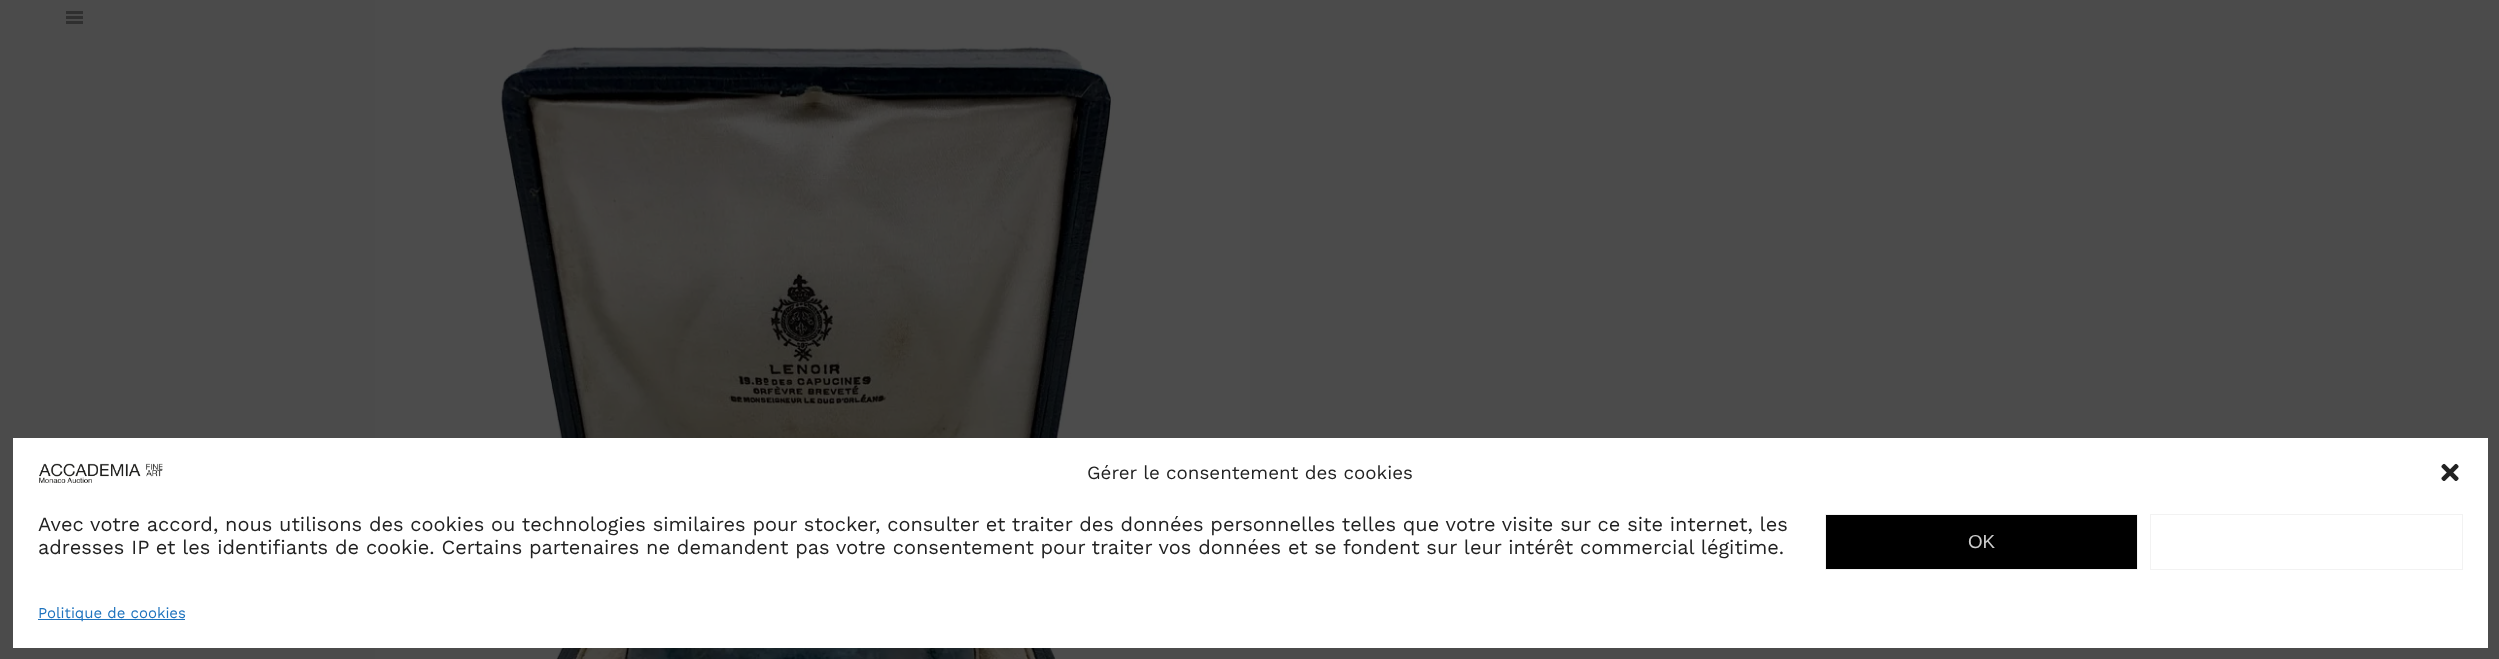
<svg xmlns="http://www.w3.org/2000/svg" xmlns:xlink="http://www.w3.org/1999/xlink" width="2499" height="659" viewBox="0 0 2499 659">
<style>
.cls-1{font:18.75px Work Sans;fill:#222222}
.cls-2{font:20px Work Sans;fill:#222222}
.cls-3{font:18.75px Liberation Sans;fill:#cccccc}
.cls-4{font:15px Work Sans;fill:#1e73be}
</style>
<rect width="100%" height="100%" fill="#4b4b4b"/>
<rect fill="#2f2f2f" x="66" y="16" width="17" height="3"/>
<rect fill="#2f2f2f" x="66" y="11" width="17" height="3"/>
<rect fill="#2f2f2f" x="66" y="21" width="17" height="3"/>
<image xlink:href="image0.png" x="375" y="0" width="875" height="659"/>
<rect fill="#ffffff" x="13" y="438" width="2475" height="210"/>
<image xlink:href="image1.png" x="39" y="463" width="124" height="20"/>
<image xlink:href="image2.png" x="2441" y="463" width="18" height="18"/>
<rect fill="#000000" stroke="#f2f2f2" x="1825.5" y="514.5" width="312" height="55"/>
<rect fill="none" stroke="#f2f2f2" x="2150.5" y="514.5" width="312" height="55"/>
<rect fill="#1e73be" x="38" y="619" width="147" height="1"/>
<text class="cls-1" x="1087" y="479">Gérer le consentement des cookies</text>
<text class="cls-2"><tspan x="38" y="531">Avec votre accord, nous utilisons des cookies ou technologies similaires pour stocker, consulter et traiter des données personnelles telles que votre visite sur ce site internet, les</tspan><tspan x="38" y="554">adresses IP et les identifiants de cookie. Certains partenaires ne demandent pas votre consentement pour traiter vos données et se fondent sur leur intérêt commercial légitime.</tspan></text>
<text class="cls-3" x="1968" y="548">OK</text>
<text class="cls-4" x="38" y="618">Politique de cookies</text>
</svg>
